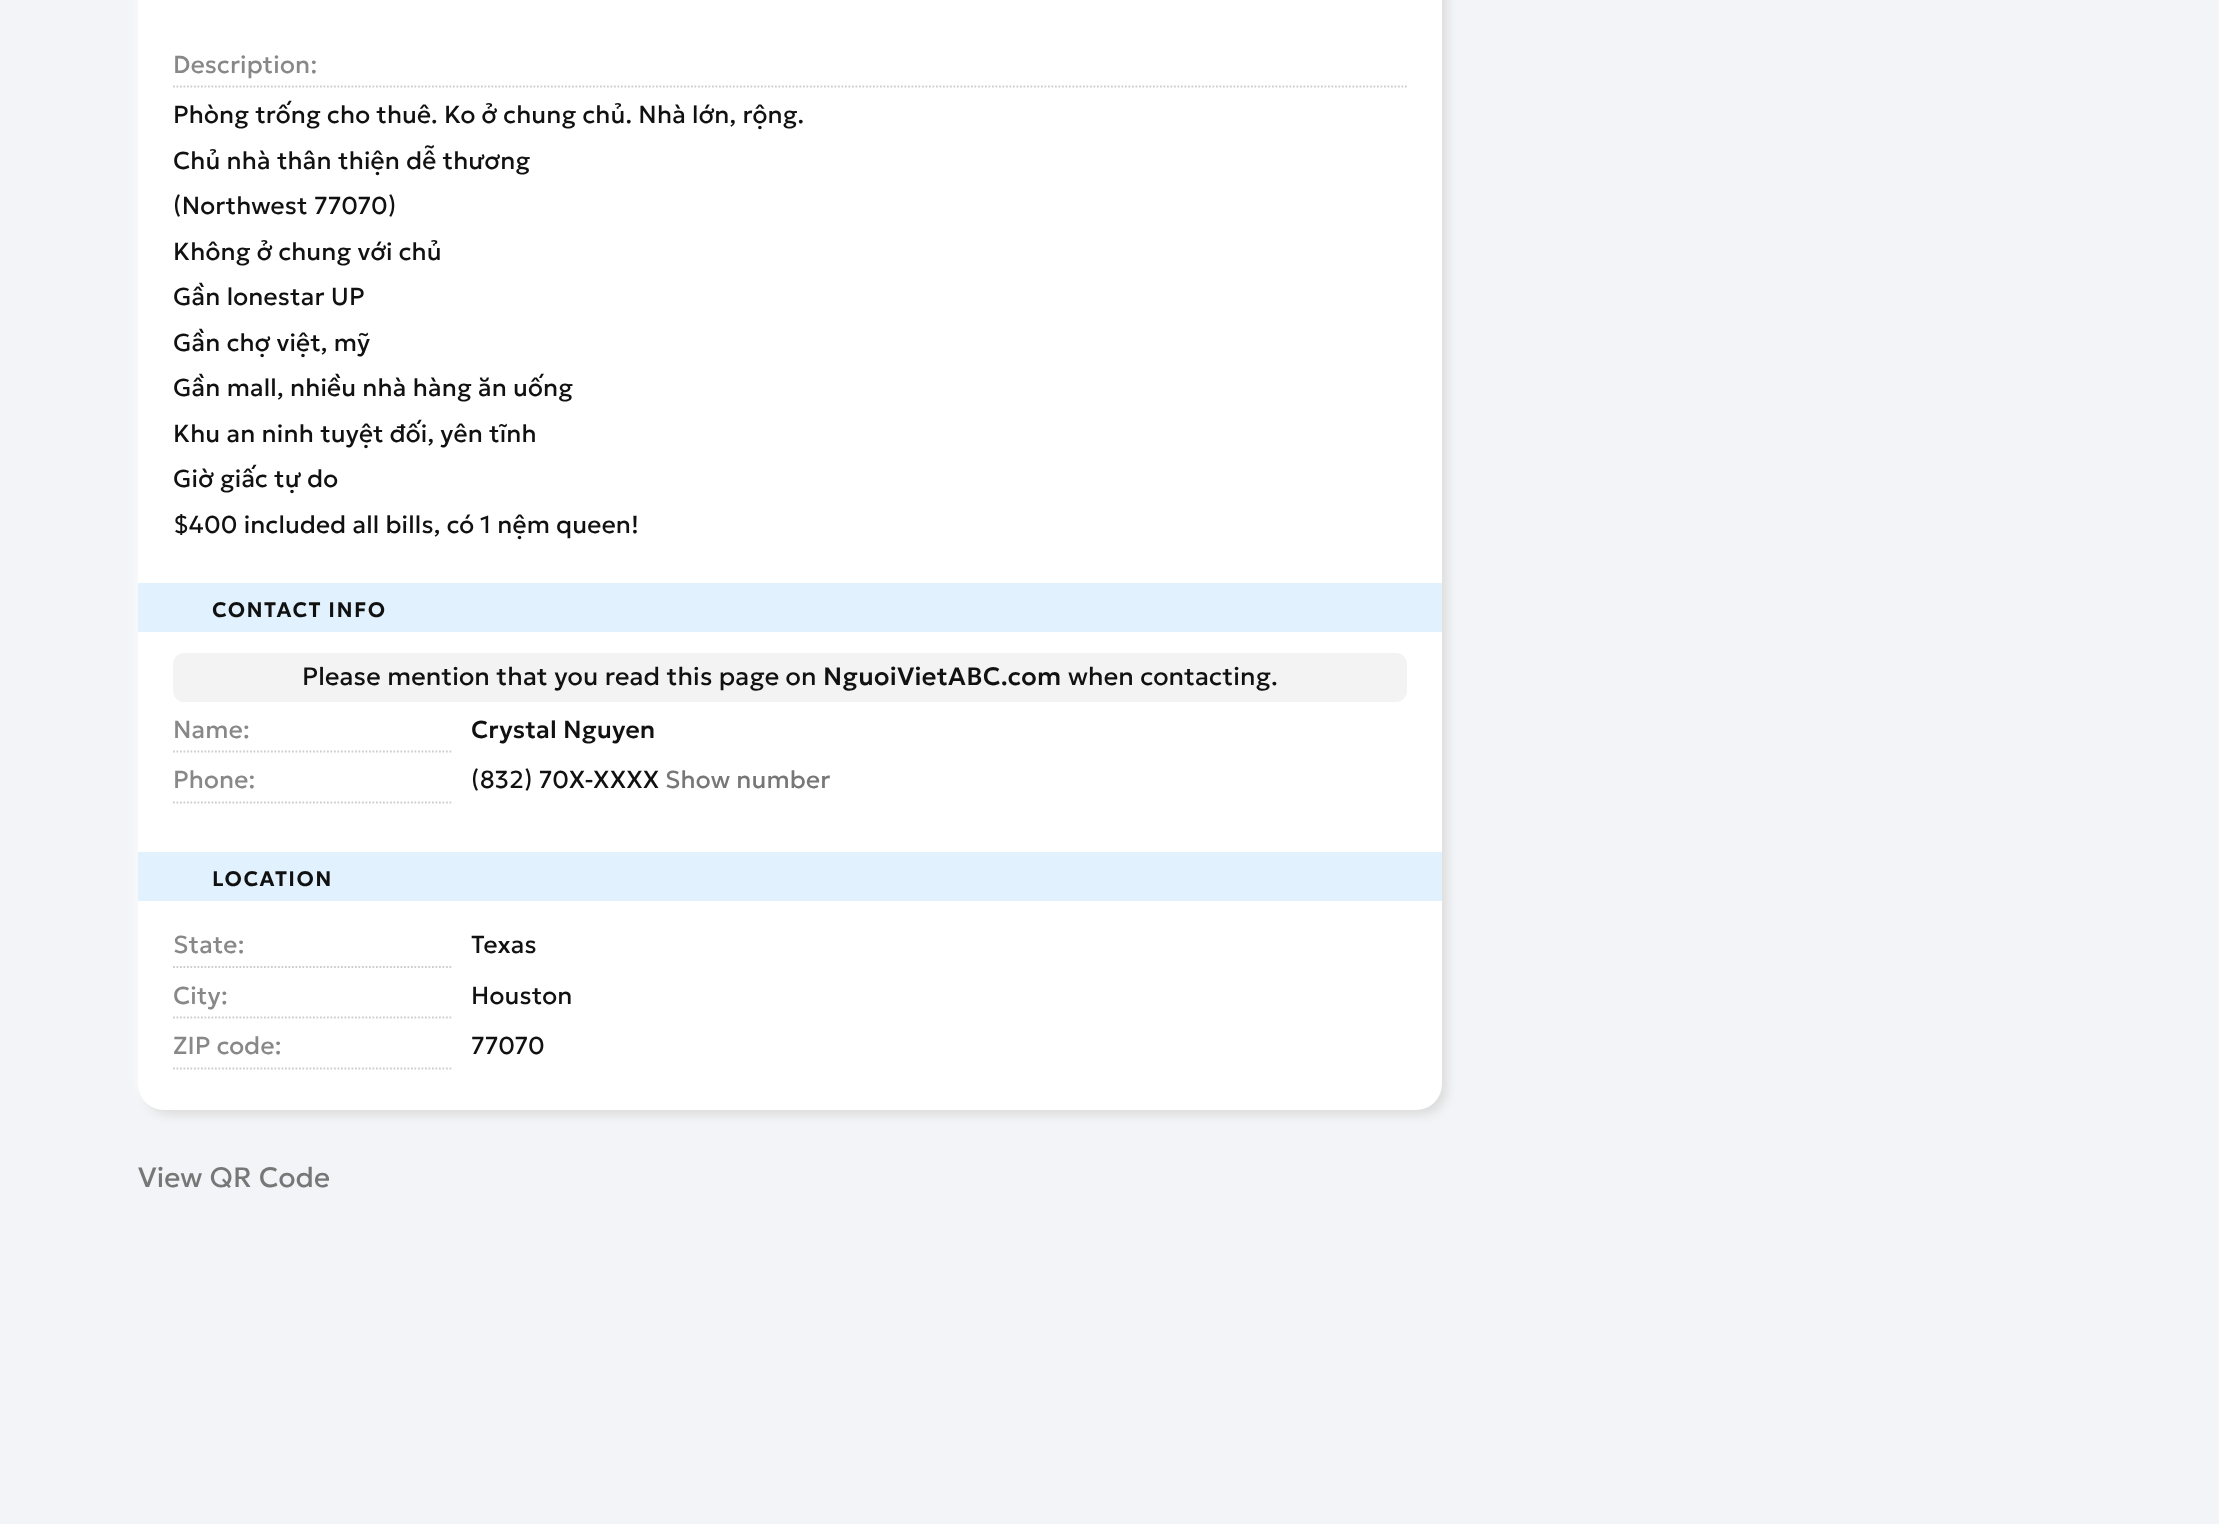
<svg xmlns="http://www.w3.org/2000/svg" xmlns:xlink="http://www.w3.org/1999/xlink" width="2219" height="1524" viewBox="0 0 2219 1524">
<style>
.cls-1{font:24.5px Geologica;letter-spacing:0.17px;fill:#888888}
.cls-2{font:24.5px Geologica;letter-spacing:0.17px;fill:#111111}
.cls-3{font:600 21px Geologica;letter-spacing:1.4px;fill:#111111}
.cls-4{font:25.2px Geologica;letter-spacing:0.17px;fill:#111111}
.cls-5{font:500 25.2px Geologica;letter-spacing:0.4px;fill:#111111}
.cls-6{font:500 24.5px Geologica;letter-spacing:0.17px;fill:#111111}
.cls-7{font:24.5px Geologica;letter-spacing:0.17px;fill:#777777}
.cls-8{font:28px Geologica;letter-spacing:0.17px;fill:#777777}
</style>
<rect width="100%" height="100%" fill="#f2f4f7"/>
<rect fill="#ffffff" filter="blur(5px)" x="137" y="-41" width="1303" height="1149" rx="26"/>
<rect fill="#dcdcdc" filter="blur(5px)" x="144" y="-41" width="1303" height="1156" rx="26"/>
<rect fill="#ffffff" x="138" y="-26" width="1304" height="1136" rx="26"/>
<path fill="none" stroke="#cdcdcd" stroke-width="1.8" stroke-dasharray="1.75 1.75" d="M173 86.5H1407"/>
<rect fill="#e1f2fe" x="138" y="583" width="1304" height="49"/>
<rect fill="#f3f3f3" x="173" y="653" width="1234" height="49" rx="11"/>
<path fill="none" stroke="#cdcdcd" stroke-width="1.8" stroke-dasharray="1.75 1.75" d="M173 751.5H453"/>
<path fill="none" stroke="#cdcdcd" stroke-width="1.8" stroke-dasharray="1.75 1.75" d="M173 802.5H453"/>
<rect fill="#e1f2fe" x="138" y="852" width="1304" height="49"/>
<path fill="none" stroke="#cdcdcd" stroke-width="1.8" stroke-dasharray="1.75 1.75" d="M173 967H453"/>
<path fill="none" stroke="#cdcdcd" stroke-width="1.8" stroke-dasharray="1.75 1.75" d="M173 1017.5H453"/>
<path fill="none" stroke="#cdcdcd" stroke-width="1.8" stroke-dasharray="1.75 1.75" d="M173 1068.5H453"/>
<text class="cls-1" x="173" y="73">Description:</text>
<text class="cls-2"><tspan x="173" y="123">Phòng trống cho thuê. Ko ở chung chủ. Nhà lớn, rộng.</tspan><tspan x="173" y="169">Chủ nhà thân thiện dễ thương</tspan><tspan x="173" y="214">(Northwest 77070)</tspan><tspan x="173" y="260">Không ở chung với chủ</tspan><tspan x="173" y="305">Gần lonestar UP</tspan><tspan x="173" y="351">Gần chợ việt, mỹ</tspan><tspan x="173" y="396">Gần mall, nhiều nhà hàng ăn uống</tspan><tspan x="173" y="442">Khu an ninh tuyệt đối, yên tĩnh</tspan><tspan x="173" y="487">Giờ giấc tự do</tspan><tspan x="173" y="533">$400 included all bills, có 1 nệm queen!</tspan></text>
<text class="cls-3" x="212" y="617">CONTACT INFO</text>
<text class="cls-4" x="302" y="685">Please mention that you read this page on</text>
<text class="cls-5" x="823" y="685">NguoiVietABC.com</text>
<text class="cls-4" x="1068" y="685">when contacting.</text>
<text class="cls-1" x="173" y="738">Name:</text>
<text class="cls-6" x="471" y="738">Crystal Nguyen</text>
<text class="cls-1" x="173" y="788">Phone:</text>
<text class="cls-2" x="471" y="788">(832) 70X-XXXX</text>
<text class="cls-7" x="665" y="788">Show number</text>
<text class="cls-3" x="212" y="886">LOCATION</text>
<text class="cls-1" x="173" y="953">State:</text>
<text class="cls-2" x="471" y="953">Texas</text>
<text class="cls-1" x="173" y="1004">City:</text>
<text class="cls-2" x="471" y="1004">Houston</text>
<text class="cls-1" x="173" y="1054">ZIP code:</text>
<text class="cls-2" x="471" y="1054">77070</text>
<text class="cls-8" x="138" y="1187">View QR Code</text>
</svg>
